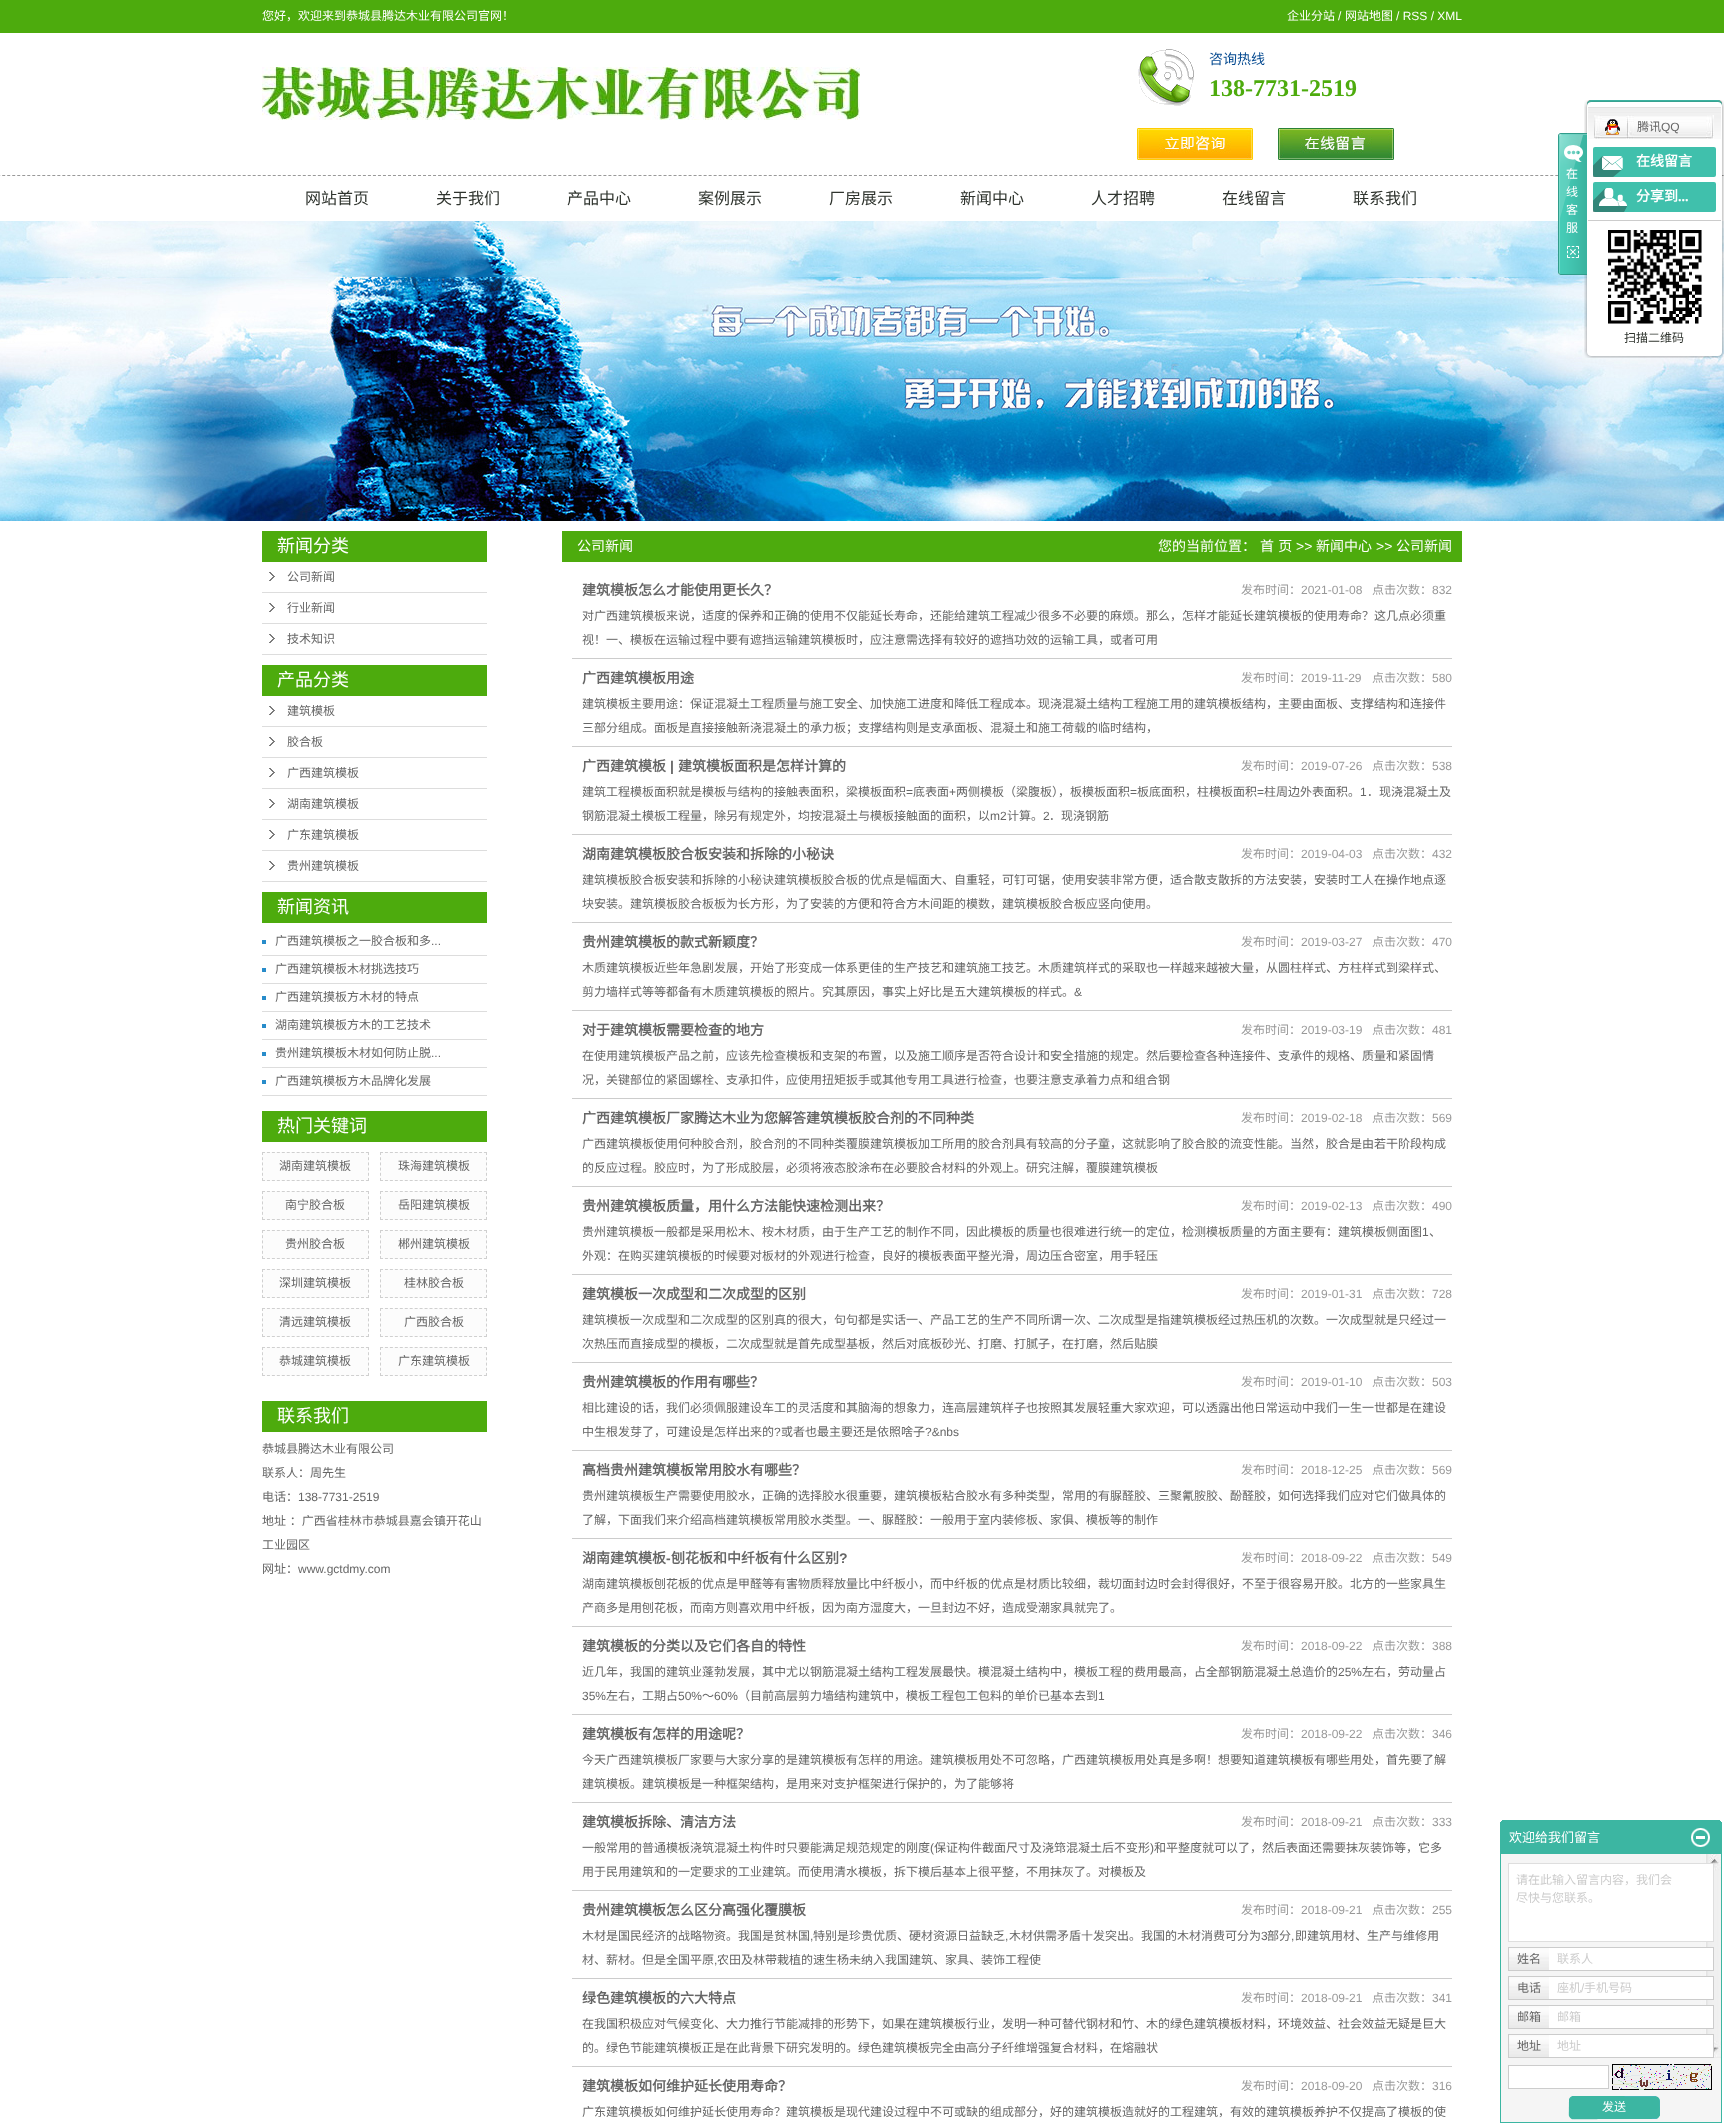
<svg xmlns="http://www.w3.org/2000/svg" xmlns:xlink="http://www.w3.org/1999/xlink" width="1724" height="2124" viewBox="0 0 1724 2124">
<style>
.cls-1{font:12px Noto Sans CJK SC;fill:#ffffff}
.cls-2{font:12px Liberation Sans;fill:#ffffff}
.cls-3{font:14px Noto Sans CJK SC;fill:#074b91}
.cls-4{font:bold 24px Liberation Serif;fill:#4dab0d}
.cls-5{font:16px Noto Sans CJK SC;fill:#2f342e}
.cls-6{font:12px Noto Sans CJK SC;fill:#666666}
.cls-7{font:12px Liberation Sans;fill:#666666}
.cls-8{font:bold 14px Noto Sans CJK SC;fill:#ffffff}
.cls-9{font:bold 14px Liberation Serif;fill:#ffffff}
.cls-10{font:12px Noto Sans CJK SC;fill:#2f342e}
.cls-11{font:18px Noto Sans CJK SC;fill:#ffffff}
.cls-12{font:14px Noto Sans CJK SC;fill:#ffffff}
.cls-13{font:14px Liberation Sans;fill:#ffffff}
.cls-14{font:bold 14px Noto Sans CJK SC;fill:#666666}
.cls-15{font:12px Noto Sans CJK SC;fill:#999999}
.cls-16{font:12px Liberation Sans;fill:#999999}
.cls-17{font:bold 14px Liberation Sans;fill:#666666}
.cls-18{font:13px Noto Sans CJK SC;fill:#ffffff}
.cls-19{font:12px Noto Sans CJK SC;fill:#cccccc}
.cls-20{font:12px Liberation Sans;fill:#cccccc}
</style>
<rect width="100%" height="100%" fill="#ffffff"/>
<rect fill="#4dab0d" x="0" y="0" width="1724" height="33"/>
<image xlink:href="image0.png" x="262" y="67" width="598" height="53"/>
<image xlink:href="image1.png" x="1138" y="49" width="56" height="57"/>
<image xlink:href="image2.png" x="1137" y="128" width="116" height="32"/>
<image xlink:href="image3.png" x="1278" y="128" width="116" height="32"/>
<path fill="none" stroke="#999999" stroke-dasharray="3 2.01" d="M-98 175.5H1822"/>
<image xlink:href="image15.png" x="0" y="221" width="1724" height="300"/>
<image xlink:href="image7.png" x="1584" y="107" width="140" height="243"/>
<image xlink:href="image4.png" x="1558" y="133" width="29" height="142"/>
<image xlink:href="image5.png" x="1567" y="246" width="12" height="12"/>
<image xlink:href="image6.png" x="1584" y="100" width="140" height="7"/>
<image xlink:href="image8.png" x="1588" y="107" width="133" height="32"/>
<image xlink:href="image9.png" x="1594" y="115" width="120" height="24"/>
<image xlink:href="image10.png" x="1605" y="119" width="15" height="16"/>
<rect fill="#40c0ac" x="1593" y="147" width="123" height="30" rx="2"/>
<image xlink:href="image11.png" x="1593" y="156" width="30" height="21"/>
<rect fill="#40c0ac" x="1593" y="182" width="123" height="30" rx="2"/>
<image xlink:href="image12.png" x="1593" y="188" width="34" height="24"/>
<rect fill="#cccccc" x="1588" y="220" width="133" height="1"/>
<image xlink:href="image13.png" x="1608" y="230" width="94" height="94"/>
<image xlink:href="image14.png" x="1584" y="350" width="140" height="8"/>
<rect fill="#4dab0d" x="262" y="531" width="225" height="31"/>
<image xlink:href="image16.png" x="269" y="572" width="6" height="9"/>
<rect fill="#dddddd" x="262" y="592" width="225" height="1"/>
<image xlink:href="image16.png" x="269" y="603" width="6" height="9"/>
<rect fill="#dddddd" x="262" y="623" width="225" height="1"/>
<image xlink:href="image16.png" x="269" y="634" width="6" height="9"/>
<rect fill="#dddddd" x="262" y="654" width="225" height="1"/>
<rect fill="#4dab0d" x="262" y="665" width="225" height="31"/>
<image xlink:href="image16.png" x="269" y="706" width="6" height="9"/>
<rect fill="#dddddd" x="262" y="726" width="225" height="1"/>
<image xlink:href="image16.png" x="269" y="737" width="6" height="9"/>
<rect fill="#dddddd" x="262" y="757" width="225" height="1"/>
<image xlink:href="image16.png" x="269" y="768" width="6" height="9"/>
<rect fill="#dddddd" x="262" y="788" width="225" height="1"/>
<image xlink:href="image16.png" x="269" y="799" width="6" height="9"/>
<rect fill="#dddddd" x="262" y="819" width="225" height="1"/>
<image xlink:href="image16.png" x="269" y="830" width="6" height="9"/>
<rect fill="#dddddd" x="262" y="850" width="225" height="1"/>
<image xlink:href="image16.png" x="269" y="861" width="6" height="9"/>
<rect fill="#dddddd" x="262" y="881" width="225" height="1"/>
<rect fill="#4dab0d" x="262" y="892" width="225" height="31"/>
<image xlink:href="image17.png" x="262" y="940" width="4" height="4"/>
<rect fill="#dddddd" x="262" y="955" width="225" height="1"/>
<image xlink:href="image17.png" x="262" y="968" width="4" height="4"/>
<rect fill="#dddddd" x="262" y="983" width="225" height="1"/>
<image xlink:href="image17.png" x="262" y="996" width="4" height="4"/>
<rect fill="#dddddd" x="262" y="1011" width="225" height="1"/>
<image xlink:href="image17.png" x="262" y="1024" width="4" height="4"/>
<rect fill="#dddddd" x="262" y="1039" width="225" height="1"/>
<image xlink:href="image17.png" x="262" y="1052" width="4" height="4"/>
<rect fill="#dddddd" x="262" y="1067" width="225" height="1"/>
<image xlink:href="image17.png" x="262" y="1080" width="4" height="4"/>
<rect fill="#dddddd" x="262" y="1095" width="225" height="1"/>
<rect fill="#4dab0d" x="262" y="1111" width="225" height="31"/>
<rect fill="#fcfcfc" x="262" y="1152" width="107" height="29"/>
<path fill="none" stroke="#d0d0d0" stroke-dasharray="3 1.95" d="M262 1152.5H369"/>
<path fill="none" stroke="#d0d0d0" stroke-dasharray="3 2.2" d="M368.5 1152V1181"/>
<path fill="none" stroke="#d0d0d0" stroke-dasharray="3 1.95" d="M262 1180.5H369"/>
<path fill="none" stroke="#d0d0d0" stroke-dasharray="3 2.2" d="M262.5 1152V1181"/>
<rect fill="#fcfcfc" x="380" y="1152" width="107" height="29"/>
<path fill="none" stroke="#d0d0d0" stroke-dasharray="3 1.95" d="M380 1152.5H487"/>
<path fill="none" stroke="#d0d0d0" stroke-dasharray="3 2.2" d="M486.5 1152V1181"/>
<path fill="none" stroke="#d0d0d0" stroke-dasharray="3 1.95" d="M380 1180.5H487"/>
<path fill="none" stroke="#d0d0d0" stroke-dasharray="3 2.2" d="M380.5 1152V1181"/>
<rect fill="#fcfcfc" x="262" y="1191" width="107" height="29"/>
<path fill="none" stroke="#d0d0d0" stroke-dasharray="3 1.95" d="M262 1191.5H369"/>
<path fill="none" stroke="#d0d0d0" stroke-dasharray="3 2.2" d="M368.5 1191V1220"/>
<path fill="none" stroke="#d0d0d0" stroke-dasharray="3 1.95" d="M262 1219.5H369"/>
<path fill="none" stroke="#d0d0d0" stroke-dasharray="3 2.2" d="M262.5 1191V1220"/>
<rect fill="#fcfcfc" x="380" y="1191" width="107" height="29"/>
<path fill="none" stroke="#d0d0d0" stroke-dasharray="3 1.95" d="M380 1191.5H487"/>
<path fill="none" stroke="#d0d0d0" stroke-dasharray="3 2.2" d="M486.5 1191V1220"/>
<path fill="none" stroke="#d0d0d0" stroke-dasharray="3 1.95" d="M380 1219.5H487"/>
<path fill="none" stroke="#d0d0d0" stroke-dasharray="3 2.2" d="M380.5 1191V1220"/>
<rect fill="#fcfcfc" x="262" y="1230" width="107" height="29"/>
<path fill="none" stroke="#d0d0d0" stroke-dasharray="3 1.95" d="M262 1230.5H369"/>
<path fill="none" stroke="#d0d0d0" stroke-dasharray="3 2.2" d="M368.5 1230V1259"/>
<path fill="none" stroke="#d0d0d0" stroke-dasharray="3 1.95" d="M262 1258.5H369"/>
<path fill="none" stroke="#d0d0d0" stroke-dasharray="3 2.2" d="M262.5 1230V1259"/>
<rect fill="#fcfcfc" x="380" y="1230" width="107" height="29"/>
<path fill="none" stroke="#d0d0d0" stroke-dasharray="3 1.95" d="M380 1230.5H487"/>
<path fill="none" stroke="#d0d0d0" stroke-dasharray="3 2.2" d="M486.5 1230V1259"/>
<path fill="none" stroke="#d0d0d0" stroke-dasharray="3 1.95" d="M380 1258.5H487"/>
<path fill="none" stroke="#d0d0d0" stroke-dasharray="3 2.2" d="M380.5 1230V1259"/>
<rect fill="#fcfcfc" x="262" y="1269" width="107" height="29"/>
<path fill="none" stroke="#d0d0d0" stroke-dasharray="3 1.95" d="M262 1269.5H369"/>
<path fill="none" stroke="#d0d0d0" stroke-dasharray="3 2.2" d="M368.5 1269V1298"/>
<path fill="none" stroke="#d0d0d0" stroke-dasharray="3 1.95" d="M262 1297.5H369"/>
<path fill="none" stroke="#d0d0d0" stroke-dasharray="3 2.2" d="M262.5 1269V1298"/>
<rect fill="#fcfcfc" x="380" y="1269" width="107" height="29"/>
<path fill="none" stroke="#d0d0d0" stroke-dasharray="3 1.95" d="M380 1269.5H487"/>
<path fill="none" stroke="#d0d0d0" stroke-dasharray="3 2.2" d="M486.5 1269V1298"/>
<path fill="none" stroke="#d0d0d0" stroke-dasharray="3 1.95" d="M380 1297.5H487"/>
<path fill="none" stroke="#d0d0d0" stroke-dasharray="3 2.2" d="M380.5 1269V1298"/>
<rect fill="#fcfcfc" x="262" y="1308" width="107" height="29"/>
<path fill="none" stroke="#d0d0d0" stroke-dasharray="3 1.95" d="M262 1308.5H369"/>
<path fill="none" stroke="#d0d0d0" stroke-dasharray="3 2.2" d="M368.5 1308V1337"/>
<path fill="none" stroke="#d0d0d0" stroke-dasharray="3 1.95" d="M262 1336.5H369"/>
<path fill="none" stroke="#d0d0d0" stroke-dasharray="3 2.2" d="M262.5 1308V1337"/>
<rect fill="#fcfcfc" x="380" y="1308" width="107" height="29"/>
<path fill="none" stroke="#d0d0d0" stroke-dasharray="3 1.95" d="M380 1308.5H487"/>
<path fill="none" stroke="#d0d0d0" stroke-dasharray="3 2.2" d="M486.5 1308V1337"/>
<path fill="none" stroke="#d0d0d0" stroke-dasharray="3 1.95" d="M380 1336.5H487"/>
<path fill="none" stroke="#d0d0d0" stroke-dasharray="3 2.2" d="M380.5 1308V1337"/>
<rect fill="#fcfcfc" x="262" y="1347" width="107" height="29"/>
<path fill="none" stroke="#d0d0d0" stroke-dasharray="3 1.95" d="M262 1347.5H369"/>
<path fill="none" stroke="#d0d0d0" stroke-dasharray="3 2.2" d="M368.5 1347V1376"/>
<path fill="none" stroke="#d0d0d0" stroke-dasharray="3 1.95" d="M262 1375.5H369"/>
<path fill="none" stroke="#d0d0d0" stroke-dasharray="3 2.2" d="M262.5 1347V1376"/>
<rect fill="#fcfcfc" x="380" y="1347" width="107" height="29"/>
<path fill="none" stroke="#d0d0d0" stroke-dasharray="3 1.95" d="M380 1347.5H487"/>
<path fill="none" stroke="#d0d0d0" stroke-dasharray="3 2.2" d="M486.5 1347V1376"/>
<path fill="none" stroke="#d0d0d0" stroke-dasharray="3 1.95" d="M380 1375.5H487"/>
<path fill="none" stroke="#d0d0d0" stroke-dasharray="3 2.2" d="M380.5 1347V1376"/>
<rect fill="#4dab0d" x="262" y="1401" width="225" height="31"/>
<rect fill="#4dab0d" x="562" y="531" width="900" height="31"/>
<rect fill="#cccccc" x="572" y="658" width="880" height="1"/>
<rect fill="#cccccc" x="572" y="746" width="880" height="1"/>
<rect fill="#cccccc" x="572" y="834" width="880" height="1"/>
<rect fill="#cccccc" x="572" y="922" width="880" height="1"/>
<rect fill="#cccccc" x="572" y="1010" width="880" height="1"/>
<rect fill="#cccccc" x="572" y="1098" width="880" height="1"/>
<rect fill="#cccccc" x="572" y="1186" width="880" height="1"/>
<rect fill="#cccccc" x="572" y="1274" width="880" height="1"/>
<rect fill="#cccccc" x="572" y="1362" width="880" height="1"/>
<rect fill="#cccccc" x="572" y="1450" width="880" height="1"/>
<rect fill="#cccccc" x="572" y="1538" width="880" height="1"/>
<rect fill="#cccccc" x="572" y="1626" width="880" height="1"/>
<rect fill="#cccccc" x="572" y="1714" width="880" height="1"/>
<rect fill="#cccccc" x="572" y="1802" width="880" height="1"/>
<rect fill="#cccccc" x="572" y="1890" width="880" height="1"/>
<rect fill="#cccccc" x="572" y="1978" width="880" height="1"/>
<rect fill="#cccccc" x="572" y="2066" width="880" height="1"/>
<rect fill="#3cb6a2" x="1502" y="1820" width="218" height="1"/>
<rect fill="#3cb6a2" x="1501" y="1821" width="220" height="1"/>
<rect fill="#3cb6a2" x="1500" y="1822" width="222" height="31"/>
<image xlink:href="image18.png" x="1691" y="1828" width="19" height="19"/>
<image xlink:href="image19.png" x="1501" y="1854" width="220" height="268"/>
<rect fill="none" stroke="#3cb6a2" x="1500.5" y="1853.5" width="221" height="269"/>
<rect fill="#ffffff" stroke="#dedede" x="1508.5" y="1863.5" width="205" height="78"/>
<rect fill="#ffffff" x="1549" y="1948" width="164" height="22"/>
<rect fill="none" stroke="#cccccc" x="1508.5" y="1947.5" width="205" height="23"/>
<image xlink:href="image20.png" x="1509" y="1948" width="40" height="22"/>
<rect fill="#ffffff" x="1549" y="1977" width="164" height="22"/>
<rect fill="none" stroke="#cccccc" x="1508.5" y="1976.5" width="205" height="23"/>
<image xlink:href="image20.png" x="1509" y="1977" width="40" height="22"/>
<rect fill="#ffffff" x="1549" y="2006" width="164" height="22"/>
<rect fill="none" stroke="#cccccc" x="1508.5" y="2005.5" width="205" height="23"/>
<image xlink:href="image20.png" x="1509" y="2006" width="40" height="22"/>
<rect fill="#ffffff" x="1549" y="2035" width="164" height="22"/>
<rect fill="none" stroke="#cccccc" x="1508.5" y="2034.5" width="205" height="23"/>
<image xlink:href="image20.png" x="1509" y="2035" width="40" height="22"/>
<rect fill="#ffffff" stroke="#cccccc" x="1508.5" y="2065.5" width="100" height="23"/>
<image xlink:href="image21.png" x="1612" y="2064" width="100" height="26"/>
<image xlink:href="image22.png" x="1568" y="2096" width="92" height="24"/>
<text class="cls-1" x="262" y="20">您好，欢迎来到恭城县腾达木业有限公司官网！</text>
<text class="cls-1" x="1287" y="20">企业分站</text>
<text class="cls-2" x="1338" y="20">/</text>
<text class="cls-1" x="1345" y="20">网站地图</text>
<text class="cls-2" x="1396" y="20">/ RSS / XML</text>
<text class="cls-3" x="1209" y="64">咨询热线</text>
<text class="cls-4" x="1209" y="96">138-7731-2519</text>
<text class="cls-5" x="305" y="204">网站首页</text>
<text class="cls-5" x="436" y="204">关于我们</text>
<text class="cls-5" x="567" y="204">产品中心</text>
<text class="cls-5" x="698" y="204">案例展示</text>
<text class="cls-5" x="829" y="204">厂房展示</text>
<text class="cls-5" x="960" y="204">新闻中心</text>
<text class="cls-5" x="1091" y="204">人才招聘</text>
<text class="cls-5" x="1222" y="204">在线留言</text>
<text class="cls-5" x="1353" y="204">联系我们</text>
<text class="cls-1"><tspan x="1566" y="178">在</tspan><tspan x="1566" y="196">线</tspan><tspan x="1566" y="214">客</tspan><tspan x="1566" y="232">服</tspan></text>
<text class="cls-6" x="1637" y="131">腾讯</text>
<text class="cls-7" x="1661" y="131">QQ</text>
<text class="cls-8" x="1636" y="166">在线留言</text>
<text class="cls-8" x="1636" y="201">分享到</text>
<text class="cls-9" x="1678" y="201">...</text>
<text class="cls-10" x="1624" y="342">扫描二维码</text>
<text class="cls-11" x="277" y="552">新闻分类</text>
<text class="cls-6" x="287" y="581">公司新闻</text>
<text class="cls-6" x="287" y="612">行业新闻</text>
<text class="cls-6" x="287" y="643">技术知识</text>
<text class="cls-11" x="277" y="686">产品分类</text>
<text class="cls-6" x="287" y="715">建筑模板</text>
<text class="cls-6" x="287" y="746">胶合板</text>
<text class="cls-6" x="287" y="777">广西建筑模板</text>
<text class="cls-6" x="287" y="808">湖南建筑模板</text>
<text class="cls-6" x="287" y="839">广东建筑模板</text>
<text class="cls-6" x="287" y="870">贵州建筑模板</text>
<text class="cls-11" x="277" y="913">新闻资讯</text>
<text class="cls-6" x="275" y="945">广西建筑模板之一胶合板和多</text>
<text class="cls-7" x="431" y="945">...</text>
<text class="cls-6" x="275" y="973">广西建筑模板木材挑选技巧</text>
<text class="cls-6" x="275" y="1001">广西建筑摸板方木材的特点</text>
<text class="cls-6" x="275" y="1029">湖南建筑模板方木的工艺技术</text>
<text class="cls-6" x="275" y="1057">贵州建筑模板木材如何防止脱</text>
<text class="cls-7" x="431" y="1057">...</text>
<text class="cls-6" x="275" y="1085">广西建筑模板方木品牌化发展</text>
<text class="cls-11" x="277" y="1132">热门关键词</text>
<text class="cls-6" x="279" y="1170">湖南建筑模板</text>
<text class="cls-6" x="398" y="1170">珠海建筑模板</text>
<text class="cls-6" x="285" y="1209">南宁胶合板</text>
<text class="cls-6" x="398" y="1209">岳阳建筑模板</text>
<text class="cls-6" x="285" y="1248">贵州胶合板</text>
<text class="cls-6" x="398" y="1248">郴州建筑模板</text>
<text class="cls-6" x="279" y="1287">深圳建筑模板</text>
<text class="cls-6" x="404" y="1287">桂林胶合板</text>
<text class="cls-6" x="279" y="1326">清远建筑模板</text>
<text class="cls-6" x="404" y="1326">广西胶合板</text>
<text class="cls-6" x="279" y="1365">恭城建筑模板</text>
<text class="cls-6" x="398" y="1365">广东建筑模板</text>
<text class="cls-11" x="277" y="1422">联系我们</text>
<text class="cls-6" x="262" y="1453">恭城县腾达木业有限公司</text>
<text class="cls-6" x="262" y="1477">联系人：周先生</text>
<text class="cls-6" x="262" y="1501">电话：</text>
<text class="cls-7" x="298" y="1501">138-7731-2519</text>
<text class="cls-6" x="262" y="1525" word-spacing="1">地址 ：广西省桂林市恭城县嘉会镇开花山</text>
<text class="cls-6" x="262" y="1549">工业园区</text>
<text class="cls-6" x="262" y="1573">网址：</text>
<text class="cls-7" x="298" y="1573">www.gctdmy.com</text>
<text class="cls-12" x="577" y="551">公司新闻</text>
<text class="cls-12" x="1158" y="551">您的当前位置：</text>
<text class="cls-12" x="1260" y="551" word-spacing="1">首 页</text>
<text class="cls-13" x="1296" y="551">&gt;&gt;</text>
<text class="cls-12" x="1316" y="551">新闻中心</text>
<text class="cls-13" x="1376" y="551">&gt;&gt;</text>
<text class="cls-12" x="1396" y="551">公司新闻</text>
<text class="cls-14" x="582" y="595">建筑模板怎么才能使用更长久？</text>
<text class="cls-15" x="1241" y="594">发布时间：</text>
<text class="cls-16" x="1301" y="594">2021-01-08</text>
<text class="cls-15" x="1372" y="594">点击次数：</text>
<text class="cls-16" x="1432" y="594">832</text>
<text class="cls-6" x="582" y="620">对广西建筑模板来说，适度的保养和正确的使用不仅能延长寿命，还能给建筑工程减少很多不必要的麻烦。那么，怎样才能延长建筑模板的使用寿命？这几点必须重</text>
<text class="cls-6" x="582" y="644">视！一、模板在运输过程中要有遮挡运输建筑模板时，应注意需选择有较好的遮挡功效的运输工具，或者可用</text>
<text class="cls-14" x="582" y="683">广西建筑模板用途</text>
<text class="cls-15" x="1241" y="682">发布时间：</text>
<text class="cls-16" x="1301" y="682">2019-11-29</text>
<text class="cls-15" x="1372" y="682">点击次数：</text>
<text class="cls-16" x="1432" y="682">580</text>
<text class="cls-6" x="582" y="708">建筑模板主要用途：保证混凝土工程质量与施工安全、加快施工进度和降低工程成本。现浇混凝土结构工程施工用的建筑模板结构，主要由面板、支撑结构和连接件</text>
<text class="cls-6" x="582" y="732">三部分组成。面板是直接接触新浇混凝土的承力板；支撑结构则是支承面板、混凝土和施工荷载的临时结构，</text>
<text class="cls-14" x="582" y="771">广西建筑模板</text>
<text class="cls-17" x="670" y="771">|</text>
<text class="cls-14" x="678" y="771">建筑模板面积是怎样计算的</text>
<text class="cls-15" x="1241" y="770">发布时间：</text>
<text class="cls-16" x="1301" y="770">2019-07-26</text>
<text class="cls-15" x="1372" y="770">点击次数：</text>
<text class="cls-16" x="1432" y="770">538</text>
<text class="cls-6" x="582" y="796">建筑工程模板面积就是模板与结构的接触表面积，梁模板面积</text>
<text class="cls-7" x="906" y="796">=</text>
<text class="cls-6" x="913" y="796">底表面</text>
<text class="cls-7" x="949" y="796">+</text>
<text class="cls-6" x="956" y="796">两侧模板（梁腹板），板模板面积</text>
<text class="cls-7" x="1130" y="796">=</text>
<text class="cls-6" x="1137" y="796">板底面积，柱模板面积</text>
<text class="cls-7" x="1257" y="796">=</text>
<text class="cls-6" x="1264" y="796">柱周边外表面积。</text>
<text class="cls-7" x="1360" y="796">1</text>
<text class="cls-6" x="1367" y="796">．现浇混凝土及</text>
<text class="cls-6" x="582" y="820">钢筋混凝土模板工程量，除另有规定外，均按混凝土与模板接触面的面积，以</text>
<text class="cls-7" x="990" y="820">m2</text>
<text class="cls-6" x="1007" y="820">计算。</text>
<text class="cls-7" x="1043" y="820">2</text>
<text class="cls-6" x="1049" y="820">．现浇钢筋</text>
<text class="cls-14" x="582" y="859">湖南建筑模板胶合板安装和拆除的小秘诀</text>
<text class="cls-15" x="1241" y="858">发布时间：</text>
<text class="cls-16" x="1301" y="858">2019-04-03</text>
<text class="cls-15" x="1372" y="858">点击次数：</text>
<text class="cls-16" x="1432" y="858">432</text>
<text class="cls-6" x="582" y="884">建筑模板胶合板安装和拆除的小秘诀建筑模板胶合板的优点是幅面大、自重轻，可钉可锯，使用安装非常方便，适合散支散拆的方法安装，安装时工人在操作地点逐</text>
<text class="cls-6" x="582" y="908">块安装。建筑模板胶合板板为长方形，为了安装的方便和符合方木间距的模数，建筑模板胶合板应竖向使用。</text>
<text class="cls-14" x="582" y="947">贵州建筑模板的款式新颖度？</text>
<text class="cls-15" x="1241" y="946">发布时间：</text>
<text class="cls-16" x="1301" y="946">2019-03-27</text>
<text class="cls-15" x="1372" y="946">点击次数：</text>
<text class="cls-16" x="1432" y="946">470</text>
<text class="cls-6" x="582" y="972">木质建筑模板近些年急剧发展，开始了形变成一体系更佳的生产技艺和建筑施工技艺。木质建筑样式的采取也一样越来越被大量，从圆柱样式、方柱样式到梁样式、</text>
<text class="cls-6" x="582" y="996">剪力墙样式等等都备有木质建筑模板的照片。究其原因，事实上好比是五大建筑模板的样式。</text>
<text class="cls-7" x="1074" y="996">&amp;</text>
<text class="cls-14" x="582" y="1035">对于建筑模板需要检查的地方</text>
<text class="cls-15" x="1241" y="1034">发布时间：</text>
<text class="cls-16" x="1301" y="1034">2019-03-19</text>
<text class="cls-15" x="1372" y="1034">点击次数：</text>
<text class="cls-16" x="1432" y="1034">481</text>
<text class="cls-6" x="582" y="1060">在使用建筑模板产品之前，应该先检查模板和支架的布置，以及施工顺序是否符合设计和安全措施的规定。然后要检查各种连接件、支承件的规格、质量和紧固情</text>
<text class="cls-6" x="582" y="1084">况，关键部位的紧固螺栓、支承扣件，应使用扭矩扳手或其他专用工具进行检查，也要注意支承着力点和组合钢</text>
<text class="cls-14" x="582" y="1123">广西建筑模板厂家腾达木业为您解答建筑模板胶合剂的不同种类</text>
<text class="cls-15" x="1241" y="1122">发布时间：</text>
<text class="cls-16" x="1301" y="1122">2019-02-18</text>
<text class="cls-15" x="1372" y="1122">点击次数：</text>
<text class="cls-16" x="1432" y="1122">569</text>
<text class="cls-6" x="582" y="1148">广西建筑模板使用何种胶合剂，胶合剂的不同种类覆膜建筑模板加工所用的胶合剂具有较高的分子童，这就影响了胶合胶的流变性能。当然，胶合是由若干阶段构成</text>
<text class="cls-6" x="582" y="1172">的反应过程。胶应时，为了形成胶层，必须将液态胶涂布在必要胶合材料的外观上。研究注解，覆膜建筑模板</text>
<text class="cls-14" x="582" y="1211">贵州建筑模板质量，用什么方法能快速检测出来？</text>
<text class="cls-15" x="1241" y="1210">发布时间：</text>
<text class="cls-16" x="1301" y="1210">2019-02-13</text>
<text class="cls-15" x="1372" y="1210">点击次数：</text>
<text class="cls-16" x="1432" y="1210">490</text>
<text class="cls-6" x="582" y="1236">贵州建筑模板一般都是采用松木、桉木材质，由于生产工艺的制作不同，因此模板的质量也很难进行统一的定位，检测模板质量的方面主要有：建筑模板侧面图</text>
<text class="cls-7" x="1422" y="1236">1</text>
<text class="cls-6" x="1429" y="1236">、</text>
<text class="cls-6" x="582" y="1260">外观：在购买建筑模板的时候要对板材的外观进行检查，良好的模板表面平整光滑，周边压合密室，用手轻压</text>
<text class="cls-14" x="582" y="1299">建筑模板一次成型和二次成型的区别</text>
<text class="cls-15" x="1241" y="1298">发布时间：</text>
<text class="cls-16" x="1301" y="1298">2019-01-31</text>
<text class="cls-15" x="1372" y="1298">点击次数：</text>
<text class="cls-16" x="1432" y="1298">728</text>
<text class="cls-6" x="582" y="1324">建筑模板一次成型和二次成型的区别真的很大，句句都是实话一、产品工艺的生产不同所谓一次、二次成型是指建筑模板经过热压机的次数。一次成型就是只经过一</text>
<text class="cls-6" x="582" y="1348">次热压而直接成型的模板，二次成型就是首先成型基板，然后对底板砂光、打磨、打腻子，在打磨，然后贴膜</text>
<text class="cls-14" x="582" y="1387">贵州建筑模板的作用有哪些？</text>
<text class="cls-15" x="1241" y="1386">发布时间：</text>
<text class="cls-16" x="1301" y="1386">2019-01-10</text>
<text class="cls-15" x="1372" y="1386">点击次数：</text>
<text class="cls-16" x="1432" y="1386">503</text>
<text class="cls-6" x="582" y="1412">相比建设的话，我们必须佩服建设车工的灵活度和其脑海的想象力，连高层建筑样子也按照其发展轻重大家欢迎，可以透露出他日常运动中我们一生一世都是在建设</text>
<text class="cls-6" x="582" y="1436">中生根发芽了，可建设是怎样出来的</text>
<text class="cls-7" x="774" y="1436">?</text>
<text class="cls-6" x="781" y="1436">或者也最主要还是依照啥子</text>
<text class="cls-7" x="925" y="1436">?&amp;nbs</text>
<text class="cls-14" x="582" y="1475">高档贵州建筑模板常用胶水有哪些？</text>
<text class="cls-15" x="1241" y="1474">发布时间：</text>
<text class="cls-16" x="1301" y="1474">2018-12-25</text>
<text class="cls-15" x="1372" y="1474">点击次数：</text>
<text class="cls-16" x="1432" y="1474">569</text>
<text class="cls-6" x="582" y="1500">贵州建筑模板生产需要使用胶水，正确的选择胶水很重要，建筑模板粘合胶水有多种类型，常用的有脲醛胶、三聚氰胺胶、酚醛胶，如何选择我们应对它们做具体的</text>
<text class="cls-6" x="582" y="1524">了解，下面我们来介绍高档建筑模板常用胶水类型。一、脲醛胶：一般用于室内装修板、家俱、模板等的制作</text>
<text class="cls-14" x="582" y="1563">湖南建筑模板</text>
<text class="cls-17" x="666" y="1563">-</text>
<text class="cls-14" x="671" y="1563">刨花板和中纤板有什么区别</text>
<text class="cls-17" x="839" y="1563">?</text>
<text class="cls-15" x="1241" y="1562">发布时间：</text>
<text class="cls-16" x="1301" y="1562">2018-09-22</text>
<text class="cls-15" x="1372" y="1562">点击次数：</text>
<text class="cls-16" x="1432" y="1562">549</text>
<text class="cls-6" x="582" y="1588">湖南建筑模板刨花板的优点是甲醛等有害物质释放量比中纤板小，而中纤板的优点是材质比较细，裁切面封边时会封得很好，不至于很容易开胶。北方的一些家具生</text>
<text class="cls-6" x="582" y="1612">产商多是用刨花板，而南方则喜欢用中纤板，因为南方湿度大，一旦封边不好，造成受潮家具就完了。</text>
<text class="cls-14" x="582" y="1651">建筑模板的分类以及它们各自的特性</text>
<text class="cls-15" x="1241" y="1650">发布时间：</text>
<text class="cls-16" x="1301" y="1650">2018-09-22</text>
<text class="cls-15" x="1372" y="1650">点击次数：</text>
<text class="cls-16" x="1432" y="1650">388</text>
<text class="cls-6" x="582" y="1676">近几年，我国的建筑业蓬勃发展，其中尤以钢筋混凝土结构工程发展最快。模混凝土结构中，模板工程的费用最高，占全部钢筋混凝土总造价的</text>
<text class="cls-7" x="1338" y="1676">25%</text>
<text class="cls-6" x="1362" y="1676">左右，劳动量占</text>
<text class="cls-7" x="582" y="1700">35%</text>
<text class="cls-6" x="606" y="1700">左右，工期占</text>
<text class="cls-7" x="678" y="1700">50%</text>
<text class="cls-6" x="702" y="1700">～</text>
<text class="cls-7" x="714" y="1700">60%</text>
<text class="cls-6" x="738" y="1700">（目前高层剪力墙结构建筑中，模板工程包工包料的单价已基本去到</text>
<text class="cls-7" x="1098" y="1700">1</text>
<text class="cls-14" x="582" y="1739">建筑模板有怎样的用途呢？</text>
<text class="cls-15" x="1241" y="1738">发布时间：</text>
<text class="cls-16" x="1301" y="1738">2018-09-22</text>
<text class="cls-15" x="1372" y="1738">点击次数：</text>
<text class="cls-16" x="1432" y="1738">346</text>
<text class="cls-6" x="582" y="1764">今天广西建筑模板厂家要与大家分享的是建筑模板有怎样的用途。建筑模板用处不可忽略，广西建筑模板用处真是多啊！想要知道建筑模板有哪些用处，首先要了解</text>
<text class="cls-6" x="582" y="1788">建筑模板。建筑模板是一种框架结构，是用来对支护框架进行保护的，为了能够将</text>
<text class="cls-14" x="582" y="1827">建筑模板拆除、清洁方法</text>
<text class="cls-15" x="1241" y="1826">发布时间：</text>
<text class="cls-16" x="1301" y="1826">2018-09-21</text>
<text class="cls-15" x="1372" y="1826">点击次数：</text>
<text class="cls-16" x="1432" y="1826">333</text>
<text class="cls-6" x="582" y="1852">一般常用的普通模板浇筑混凝土构件时只要能满足规范规定的刚度</text>
<text class="cls-7" x="930" y="1852">(</text>
<text class="cls-6" x="934" y="1852">保证构件截面尺寸及浇筇混凝土后不变形</text>
<text class="cls-7" x="1150" y="1852">)</text>
<text class="cls-6" x="1154" y="1852">和平整度就可以了，然后表面还需要抹灰装饰等，它多</text>
<text class="cls-6" x="582" y="1876">用于民用建筑和的一定要求的工业建筑。而使用清水模板，拆下模后基本上很平整，不用抹灰了。对模板及</text>
<text class="cls-14" x="582" y="1915">贵州建筑模板怎么区分高强化覆膜板</text>
<text class="cls-15" x="1241" y="1914">发布时间：</text>
<text class="cls-16" x="1301" y="1914">2018-09-21</text>
<text class="cls-15" x="1372" y="1914">点击次数：</text>
<text class="cls-16" x="1432" y="1914">255</text>
<text class="cls-6" x="582" y="1940">木材是国民经济的战略物资。我国是贫林国</text>
<text class="cls-7" x="810" y="1940">,</text>
<text class="cls-6" x="813" y="1940">特别是珍贵优质、硬材资源日益缺乏</text>
<text class="cls-7" x="1005" y="1940">,</text>
<text class="cls-6" x="1009" y="1940">木材供需矛盾十发突出。我国的木材消费可分为</text>
<text class="cls-7" x="1261" y="1940">3</text>
<text class="cls-6" x="1267" y="1940">部分</text>
<text class="cls-7" x="1291" y="1940">,</text>
<text class="cls-6" x="1295" y="1940">即建筑用材、生产与维修用</text>
<text class="cls-6" x="582" y="1964">材、薪材。但是全国平原</text>
<text class="cls-7" x="714" y="1964">,</text>
<text class="cls-6" x="717" y="1964">农田及林带栽植的速生杨未纳入我国建筑、家具、装饰工程使</text>
<text class="cls-14" x="582" y="2003">绿色建筑模板的六大特点</text>
<text class="cls-15" x="1241" y="2002">发布时间：</text>
<text class="cls-16" x="1301" y="2002">2018-09-21</text>
<text class="cls-15" x="1372" y="2002">点击次数：</text>
<text class="cls-16" x="1432" y="2002">341</text>
<text class="cls-6" x="582" y="2028">在我国积极应对气候变化、大力推行节能减排的形势下，如果在建筑模板行业，发明一种可替代钢材和竹、木的绿色建筑模板材料，环境效益、社会效益无疑是巨大</text>
<text class="cls-6" x="582" y="2052">的。绿色节能建筑模板正是在此背景下研究发明的。绿色建筑模板完全由高分子纤维增强复合材料，在熔融状</text>
<text class="cls-14" x="582" y="2091">建筑模板如何维护延长使用寿命？</text>
<text class="cls-15" x="1241" y="2090">发布时间：</text>
<text class="cls-16" x="1301" y="2090">2018-09-20</text>
<text class="cls-15" x="1372" y="2090">点击次数：</text>
<text class="cls-16" x="1432" y="2090">316</text>
<text class="cls-6" x="582" y="2116">广东建筑模板如何维护延长使用寿命？建筑模板是现代建设过程中不可或缺的组成部分，好的建筑模板造就好的工程建筑，有效的建筑模板养护不仅提高了模板的使</text>
<text class="cls-18" x="1509" y="1842">欢迎给我们留言</text>
<text class="cls-19"><tspan x="1516" y="1884">请在此输入留言内容，我们会</tspan><tspan x="1516" y="1902">尽快与您联系。</tspan></text>
<text class="cls-6" x="1517" y="1963">姓名</text>
<text class="cls-19" x="1557" y="1963">联系人</text>
<text class="cls-6" x="1517" y="1992">电话</text>
<text class="cls-19" x="1557" y="1992">座机</text>
<text class="cls-20" x="1581" y="1992">/</text>
<text class="cls-19" x="1584" y="1992">手机号码</text>
<text class="cls-6" x="1517" y="2021">邮箱</text>
<text class="cls-19" x="1557" y="2021">邮箱</text>
<text class="cls-6" x="1517" y="2050">地址</text>
<text class="cls-19" x="1557" y="2050">地址</text>
<text class="cls-1" x="1602" y="2111">发送</text>
</svg>
